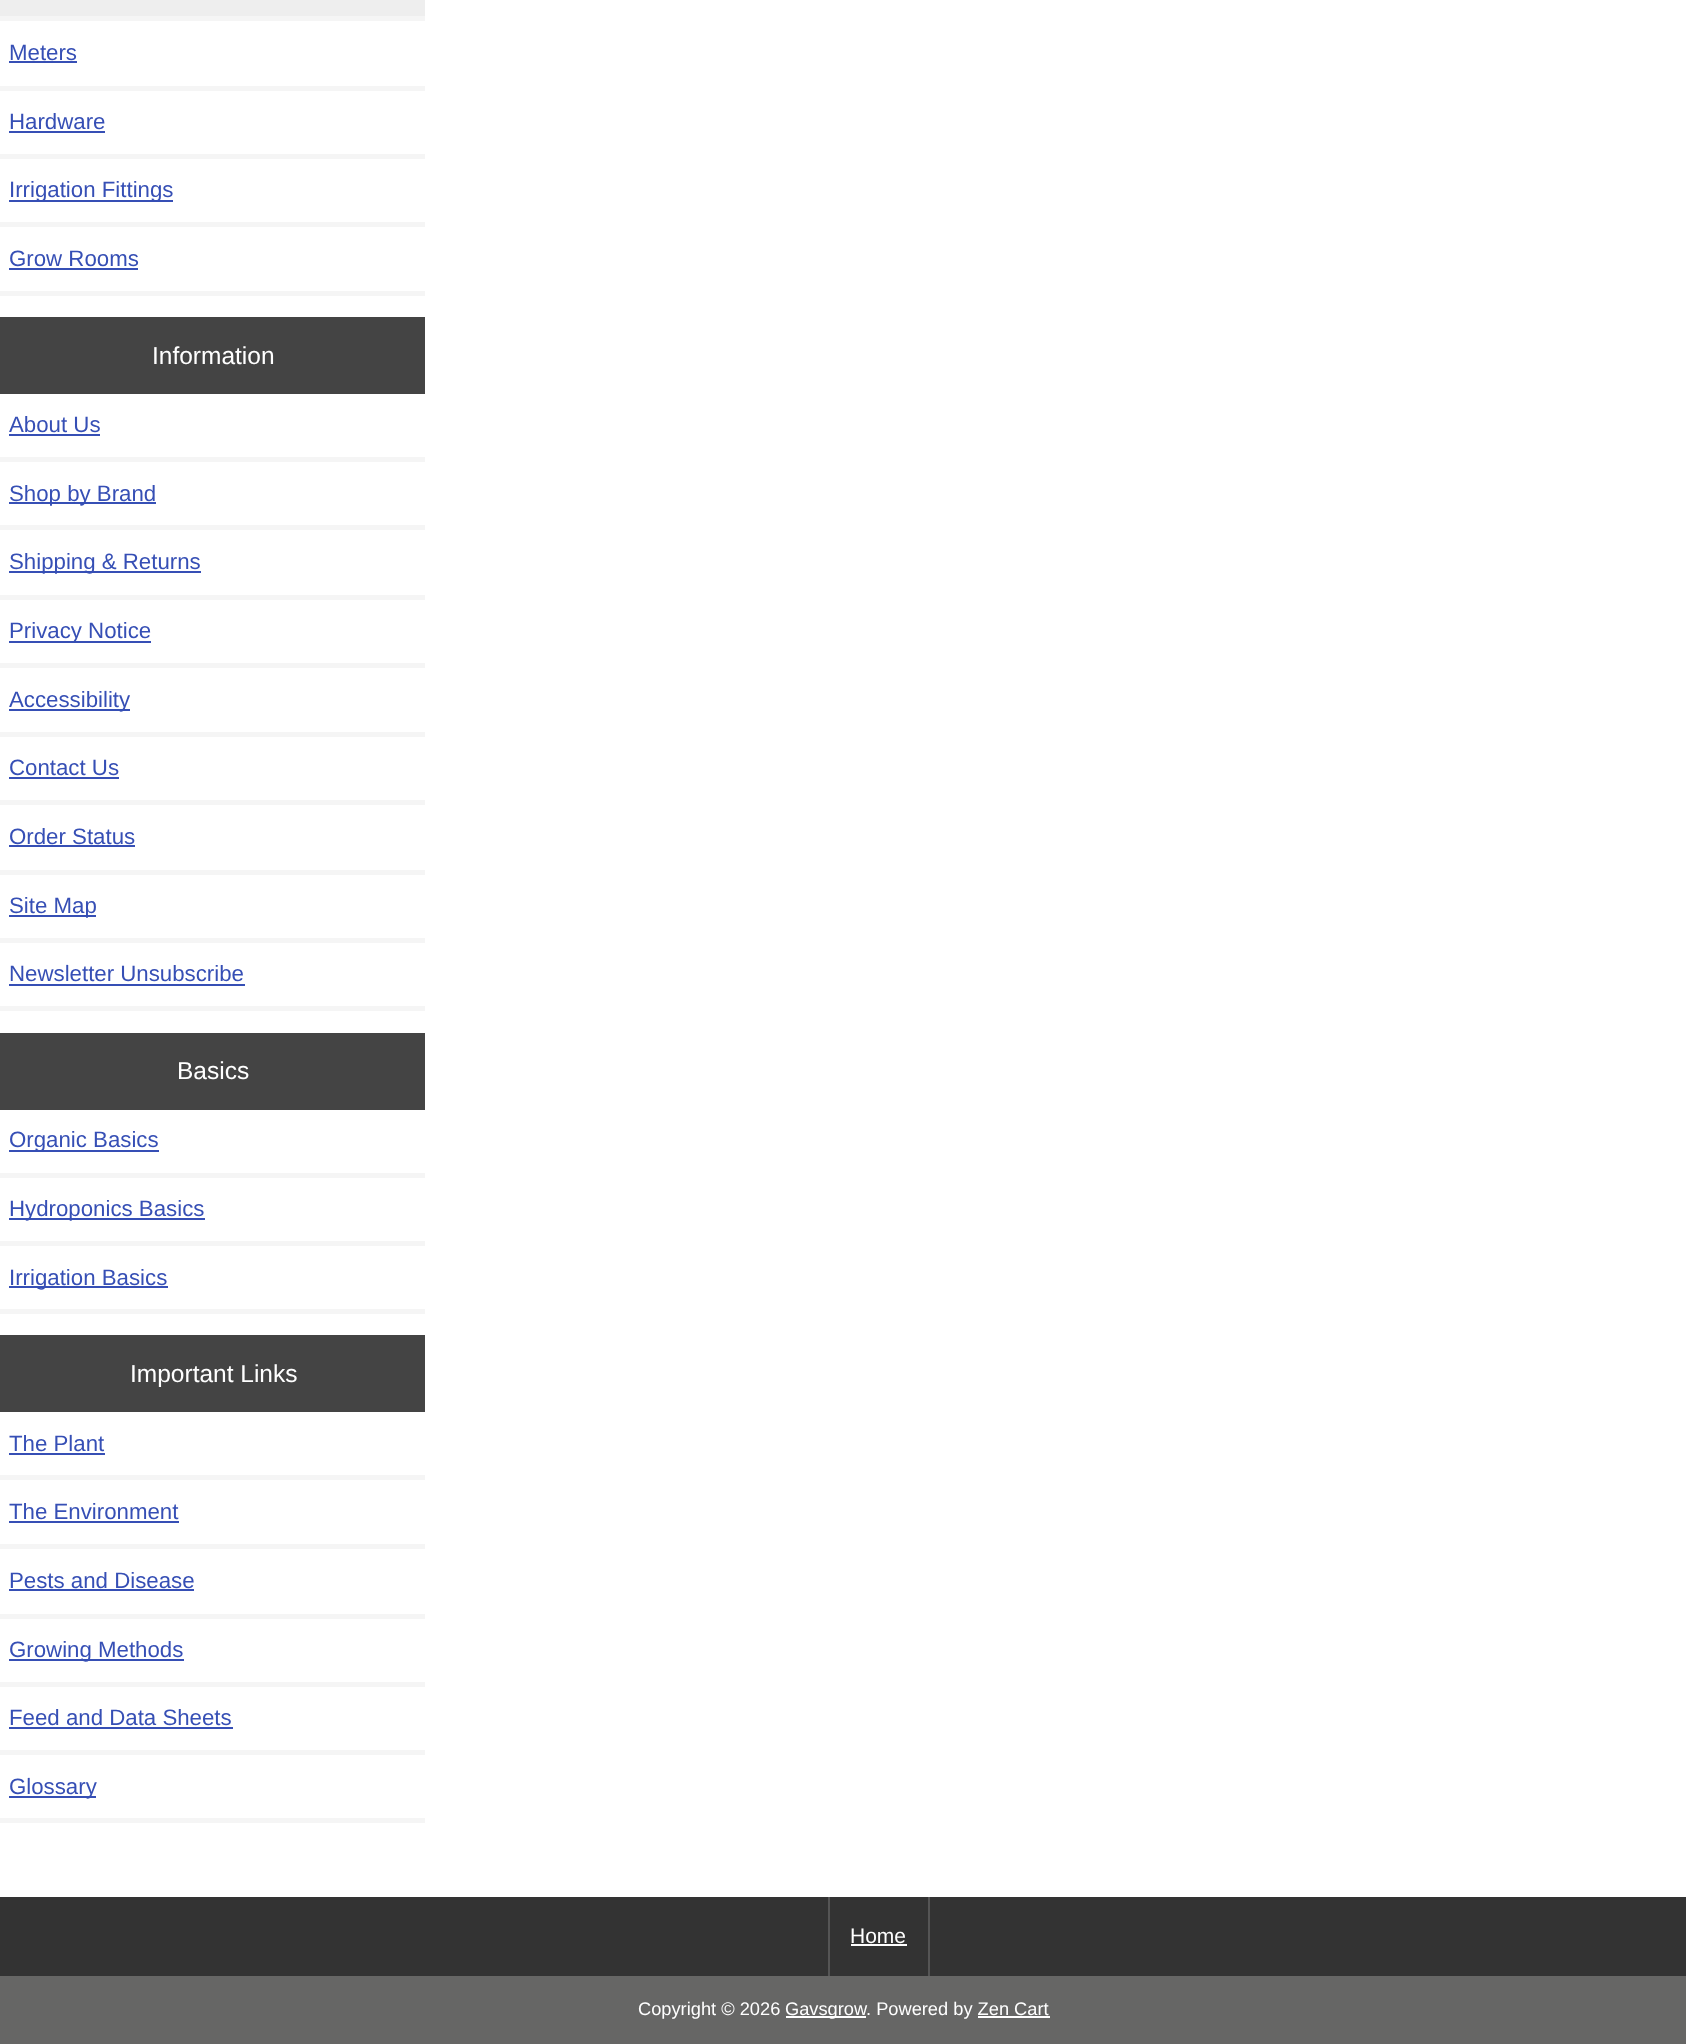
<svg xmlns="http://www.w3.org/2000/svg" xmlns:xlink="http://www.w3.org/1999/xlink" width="1686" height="2044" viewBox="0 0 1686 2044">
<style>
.cls-1{font:22.25px Liberation Sans;fill:#364fb5}
.cls-2{font:24.5px Liberation Sans;fill:#ffffff}
.cls-3{font:21px Liberation Sans;fill:#ffffff}
.cls-4{font:18.25px Liberation Sans;fill:#ffffff}
</style>
<rect width="100%" height="100%" fill="#ffffff"/>
<rect fill="#eeeeee" x="0" y="0" width="425" height="16"/>
<rect fill="#f5f5f5" x="0" y="16" width="425" height="5"/>
<rect fill="#f5f5f5" x="0" y="86" width="425" height="5"/>
<rect fill="#364fb5" x="9" y="61" width="68" height="2"/>
<rect fill="#f5f5f5" x="0" y="154" width="425" height="5"/>
<rect fill="#364fb5" x="9" y="131" width="96" height="2"/>
<rect fill="#f5f5f5" x="0" y="222" width="425" height="5"/>
<rect fill="#364fb5" x="9" y="200" width="164" height="2"/>
<rect fill="#f5f5f5" x="0" y="291" width="425" height="5"/>
<rect fill="#364fb5" x="9" y="268" width="129" height="2"/>
<rect fill="#444444" x="0" y="317" width="425" height="77"/>
<rect fill="#f5f5f5" x="0" y="457" width="425" height="5"/>
<rect fill="#364fb5" x="9" y="434" width="91" height="2"/>
<rect fill="#f5f5f5" x="0" y="525" width="425" height="5"/>
<rect fill="#364fb5" x="9" y="502" width="147" height="2"/>
<rect fill="#f5f5f5" x="0" y="595" width="425" height="5"/>
<rect fill="#364fb5" x="9" y="571" width="192" height="2"/>
<rect fill="#f5f5f5" x="0" y="663" width="425" height="5"/>
<rect fill="#364fb5" x="9" y="641" width="142" height="2"/>
<rect fill="#f5f5f5" x="0" y="732" width="425" height="5"/>
<rect fill="#364fb5" x="9" y="709" width="121" height="2"/>
<rect fill="#f5f5f5" x="0" y="800" width="425" height="5"/>
<rect fill="#364fb5" x="9" y="777" width="110" height="2"/>
<rect fill="#f5f5f5" x="0" y="870" width="425" height="5"/>
<rect fill="#364fb5" x="9" y="845" width="126" height="2"/>
<rect fill="#f5f5f5" x="0" y="938" width="425" height="5"/>
<rect fill="#364fb5" x="9" y="915" width="87" height="2"/>
<rect fill="#f5f5f5" x="0" y="1006" width="425" height="5"/>
<rect fill="#364fb5" x="9" y="984" width="236" height="2"/>
<rect fill="#444444" x="0" y="1033" width="425" height="77"/>
<rect fill="#f5f5f5" x="0" y="1173" width="425" height="5"/>
<rect fill="#364fb5" x="9" y="1150" width="150" height="2"/>
<rect fill="#f5f5f5" x="0" y="1241" width="425" height="5"/>
<rect fill="#364fb5" x="9" y="1218" width="196" height="2"/>
<rect fill="#f5f5f5" x="0" y="1309" width="425" height="5"/>
<rect fill="#364fb5" x="9" y="1286" width="159" height="2"/>
<rect fill="#444444" x="0" y="1335" width="425" height="77"/>
<rect fill="#f5f5f5" x="0" y="1475" width="425" height="5"/>
<rect fill="#364fb5" x="9" y="1453" width="96" height="2"/>
<rect fill="#f5f5f5" x="0" y="1544" width="425" height="5"/>
<rect fill="#364fb5" x="9" y="1521" width="170" height="2"/>
<rect fill="#f5f5f5" x="0" y="1614" width="425" height="5"/>
<rect fill="#364fb5" x="9" y="1589" width="185" height="2"/>
<rect fill="#f5f5f5" x="0" y="1682" width="425" height="5"/>
<rect fill="#364fb5" x="9" y="1659" width="175" height="2"/>
<rect fill="#f5f5f5" x="0" y="1750" width="425" height="5"/>
<rect fill="#364fb5" x="9" y="1727" width="224" height="2"/>
<rect fill="#f5f5f5" x="0" y="1818" width="425" height="5"/>
<rect fill="#364fb5" x="9" y="1796" width="87" height="2"/>
<rect fill="#333333" x="0" y="1897" width="1686" height="79"/>
<rect fill="#555555" x="928" y="1897" width="2" height="79"/>
<rect fill="#555555" x="828" y="1897" width="2" height="79"/>
<rect fill="#ffffff" x="851" y="1944" width="56" height="2"/>
<rect fill="#666665" x="0" y="1976" width="1686" height="68"/>
<rect fill="#ffffff" x="786" y="2016" width="80" height="2"/>
<rect fill="#ffffff" x="978" y="2016" width="72" height="2"/>
<text class="cls-1" x="9" y="60">Meters</text>
<text class="cls-1" x="9" y="129">Hardware</text>
<text class="cls-1" x="9" y="197">Irrigation Fittings</text>
<text class="cls-1" x="9" y="266">Grow Rooms</text>
<text class="cls-2" x="152" y="364">Information</text>
<text class="cls-1" x="9" y="432">About Us</text>
<text class="cls-1" x="9" y="501">Shop by Brand</text>
<text class="cls-1" x="9" y="569">Shipping &amp; Returns</text>
<text class="cls-1" x="9" y="638">Privacy Notice</text>
<text class="cls-1" x="9" y="707">Accessibility</text>
<text class="cls-1" x="9" y="775">Contact Us</text>
<text class="cls-1" x="9" y="844">Order Status</text>
<text class="cls-1" x="9" y="913">Site Map</text>
<text class="cls-1" x="9" y="981">Newsletter Unsubscribe</text>
<text class="cls-2" x="177" y="1079">Basics</text>
<text class="cls-1" x="9" y="1147">Organic Basics</text>
<text class="cls-1" x="9" y="1216">Hydroponics Basics</text>
<text class="cls-1" x="9" y="1285">Irrigation Basics</text>
<text class="cls-2" x="130" y="1382">Important Links</text>
<text class="cls-1" x="9" y="1451">The Plant</text>
<text class="cls-1" x="9" y="1519">The Environment</text>
<text class="cls-1" x="9" y="1588">Pests and Disease</text>
<text class="cls-1" x="9" y="1657">Growing Methods</text>
<text class="cls-1" x="9" y="1725">Feed and Data Sheets</text>
<text class="cls-1" x="9" y="1794">Glossary</text>
<text class="cls-3" x="850" y="1943">Home</text>
<text class="cls-4" x="638" y="2015">Copyright © 2026</text>
<text class="cls-4" x="785" y="2015">Gavsgrow</text>
<text class="cls-4" x="866" y="2015">. Powered by Zen Cart</text>
</svg>
